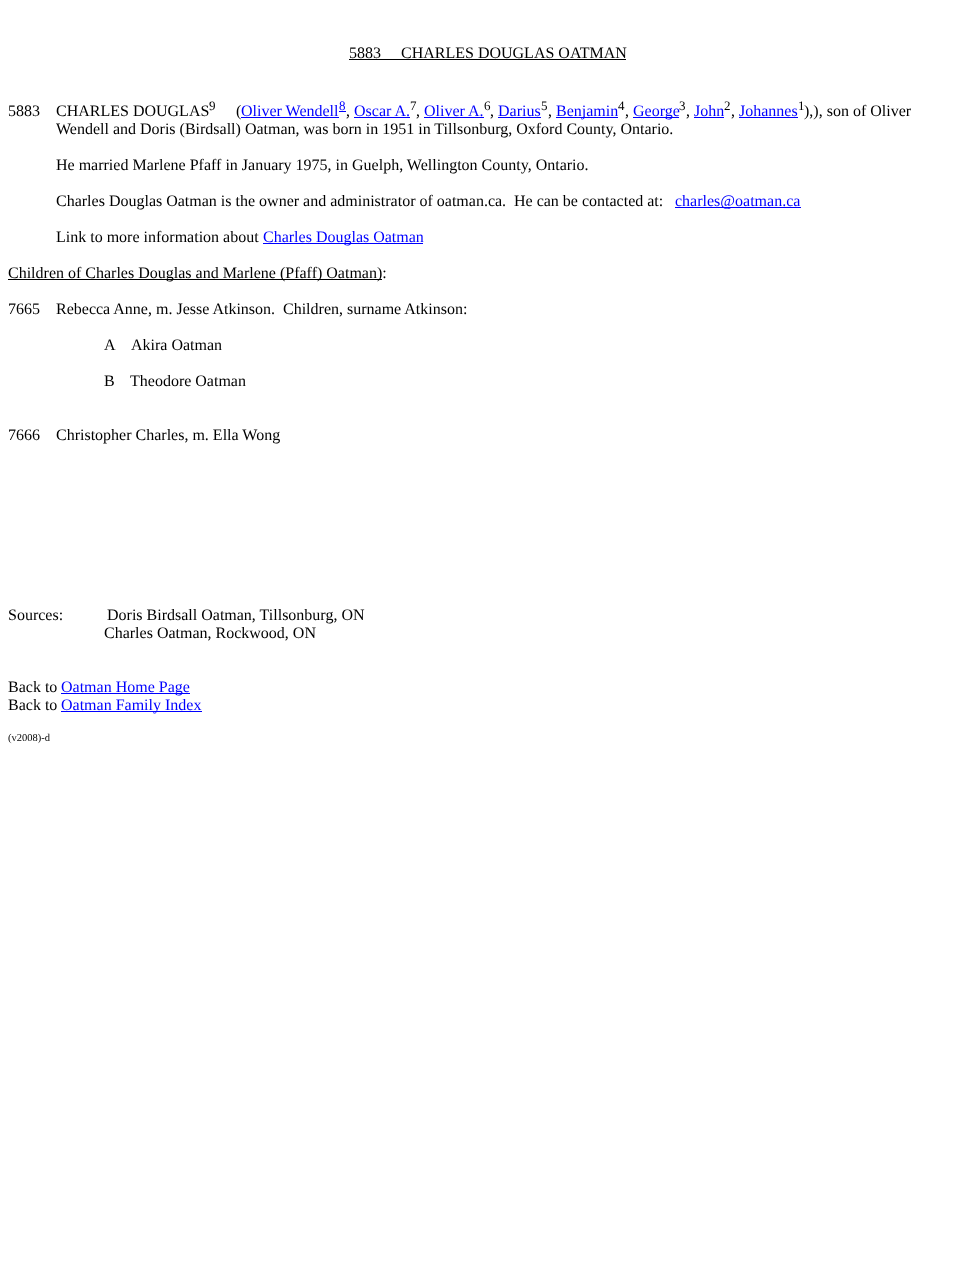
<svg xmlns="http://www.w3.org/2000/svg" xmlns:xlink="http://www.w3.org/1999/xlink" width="975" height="1288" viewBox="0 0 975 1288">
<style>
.cls-1{font:16px Liberation Serif;fill:#000000}
.cls-2{font:13px Liberation Serif;fill:#000000}
.cls-3{font:16px Liberation Serif;fill:#0000ff}
.cls-4{font:13px Liberation Serif;fill:#0000ff}
.cls-5{font:10.5px Liberation Serif;fill:#000000}
</style>
<rect width="100%" height="100%" fill="#ffffff"/>
<rect fill="#000000" x="349" y="59" width="277" height="1"/>
<rect fill="#0000ff" x="339" y="111" width="7" height="1"/>
<rect fill="#0000ff" x="241" y="117" width="98" height="1"/>
<rect fill="#0000ff" x="354" y="117" width="56" height="1"/>
<rect fill="#0000ff" x="424" y="117" width="60" height="1"/>
<rect fill="#0000ff" x="498" y="117" width="43" height="1"/>
<rect fill="#0000ff" x="556" y="117" width="62" height="1"/>
<rect fill="#0000ff" x="633" y="117" width="46" height="1"/>
<rect fill="#0000ff" x="694" y="117" width="30" height="1"/>
<rect fill="#0000ff" x="739" y="117" width="59" height="1"/>
<rect fill="#0000ff" x="675" y="207" width="126" height="1"/>
<rect fill="#0000ff" x="263" y="243" width="160" height="1"/>
<rect fill="#000000" x="8" y="279" width="374" height="1"/>
<rect fill="#0000ff" x="61" y="693" width="129" height="1"/>
<rect fill="#0000ff" x="61" y="711" width="141" height="1"/>
<text class="cls-1" x="349" y="58">5883</text>
<text class="cls-1" x="401" y="58">CHARLES DOUGLAS OATMAN</text>
<text class="cls-1" x="8" y="116">5883</text>
<text class="cls-1" x="56" y="116">CHARLES DOUGLAS</text>
<text class="cls-2" x="209" y="110">9</text>
<text class="cls-1" x="236" y="116">(</text>
<text class="cls-3" x="241" y="116">Oliver Wendell</text>
<text class="cls-4" x="339" y="110">8</text>
<text class="cls-1" x="346" y="116">,</text>
<text class="cls-3" x="354" y="116">Oscar A.</text>
<text class="cls-2" x="410" y="110">7</text>
<text class="cls-1" x="416" y="116">,</text>
<text class="cls-3" x="424" y="116">Oliver A.</text>
<text class="cls-2" x="484" y="110">6</text>
<text class="cls-1" x="490" y="116">,</text>
<text class="cls-3" x="498" y="116">Darius</text>
<text class="cls-2" x="541" y="110">5</text>
<text class="cls-1" x="548" y="116">,</text>
<text class="cls-3" x="556" y="116">Benjamin</text>
<text class="cls-2" x="618" y="110">4</text>
<text class="cls-1" x="625" y="116">,</text>
<text class="cls-3" x="633" y="116">George</text>
<text class="cls-2" x="679" y="110">3</text>
<text class="cls-1" x="686" y="116">,</text>
<text class="cls-3" x="694" y="116">John</text>
<text class="cls-2" x="724" y="110">2</text>
<text class="cls-1" x="731" y="116">,</text>
<text class="cls-3" x="739" y="116">Johannes</text>
<text class="cls-2" x="798" y="110">1</text>
<text class="cls-1" x="804" y="116">),), son of Oliver</text>
<text class="cls-1" x="56" y="134">Wendell and Doris (Birdsall) Oatman, was born in 1951 in Tillsonburg, Oxford County, Ontario.</text>
<text class="cls-1" x="56" y="170">He married Marlene Pfaff in January 1975, in Guelph, Wellington County, Ontario.</text>
<text class="cls-1" x="56" y="206">Charles Douglas Oatman is the owner and administrator of oatman.ca.</text>
<text class="cls-1" x="514" y="206">He can be contacted at:</text>
<text class="cls-3" x="675" y="206">charles@oatman.ca</text>
<text class="cls-1" x="56" y="242">Link to more information about</text>
<text class="cls-3" x="263" y="242">Charles Douglas Oatman</text>
<text class="cls-1" x="8" y="278">Children of Charles Douglas and Marlene (Pfaff) Oatman):</text>
<text class="cls-1" x="8" y="314">7665</text>
<text class="cls-1" x="56" y="314">Rebecca Anne, m. Jesse Atkinson.</text>
<text class="cls-1" x="283" y="314">Children, surname Atkinson:</text>
<text class="cls-1" x="104" y="350">A</text>
<text class="cls-1" x="131" y="350">Akira Oatman</text>
<text class="cls-1" x="104" y="386">B</text>
<text class="cls-1" x="130" y="386">Theodore Oatman</text>
<text class="cls-1" x="8" y="440">7666</text>
<text class="cls-1" x="56" y="440">Christopher Charles, m. Ella Wong</text>
<text class="cls-1" x="8" y="620">Sources:</text>
<text class="cls-1" x="107" y="620">Doris Birdsall Oatman, Tillsonburg, ON</text>
<text class="cls-1" x="104" y="638">Charles Oatman, Rockwood, ON</text>
<text class="cls-1" x="8" y="692">Back to</text>
<text class="cls-3" x="61" y="692">Oatman Home Page</text>
<text class="cls-1" x="8" y="710">Back to</text>
<text class="cls-3" x="61" y="710">Oatman Family Index</text>
<text class="cls-5" x="8" y="741">(v2008)-d</text>
</svg>
